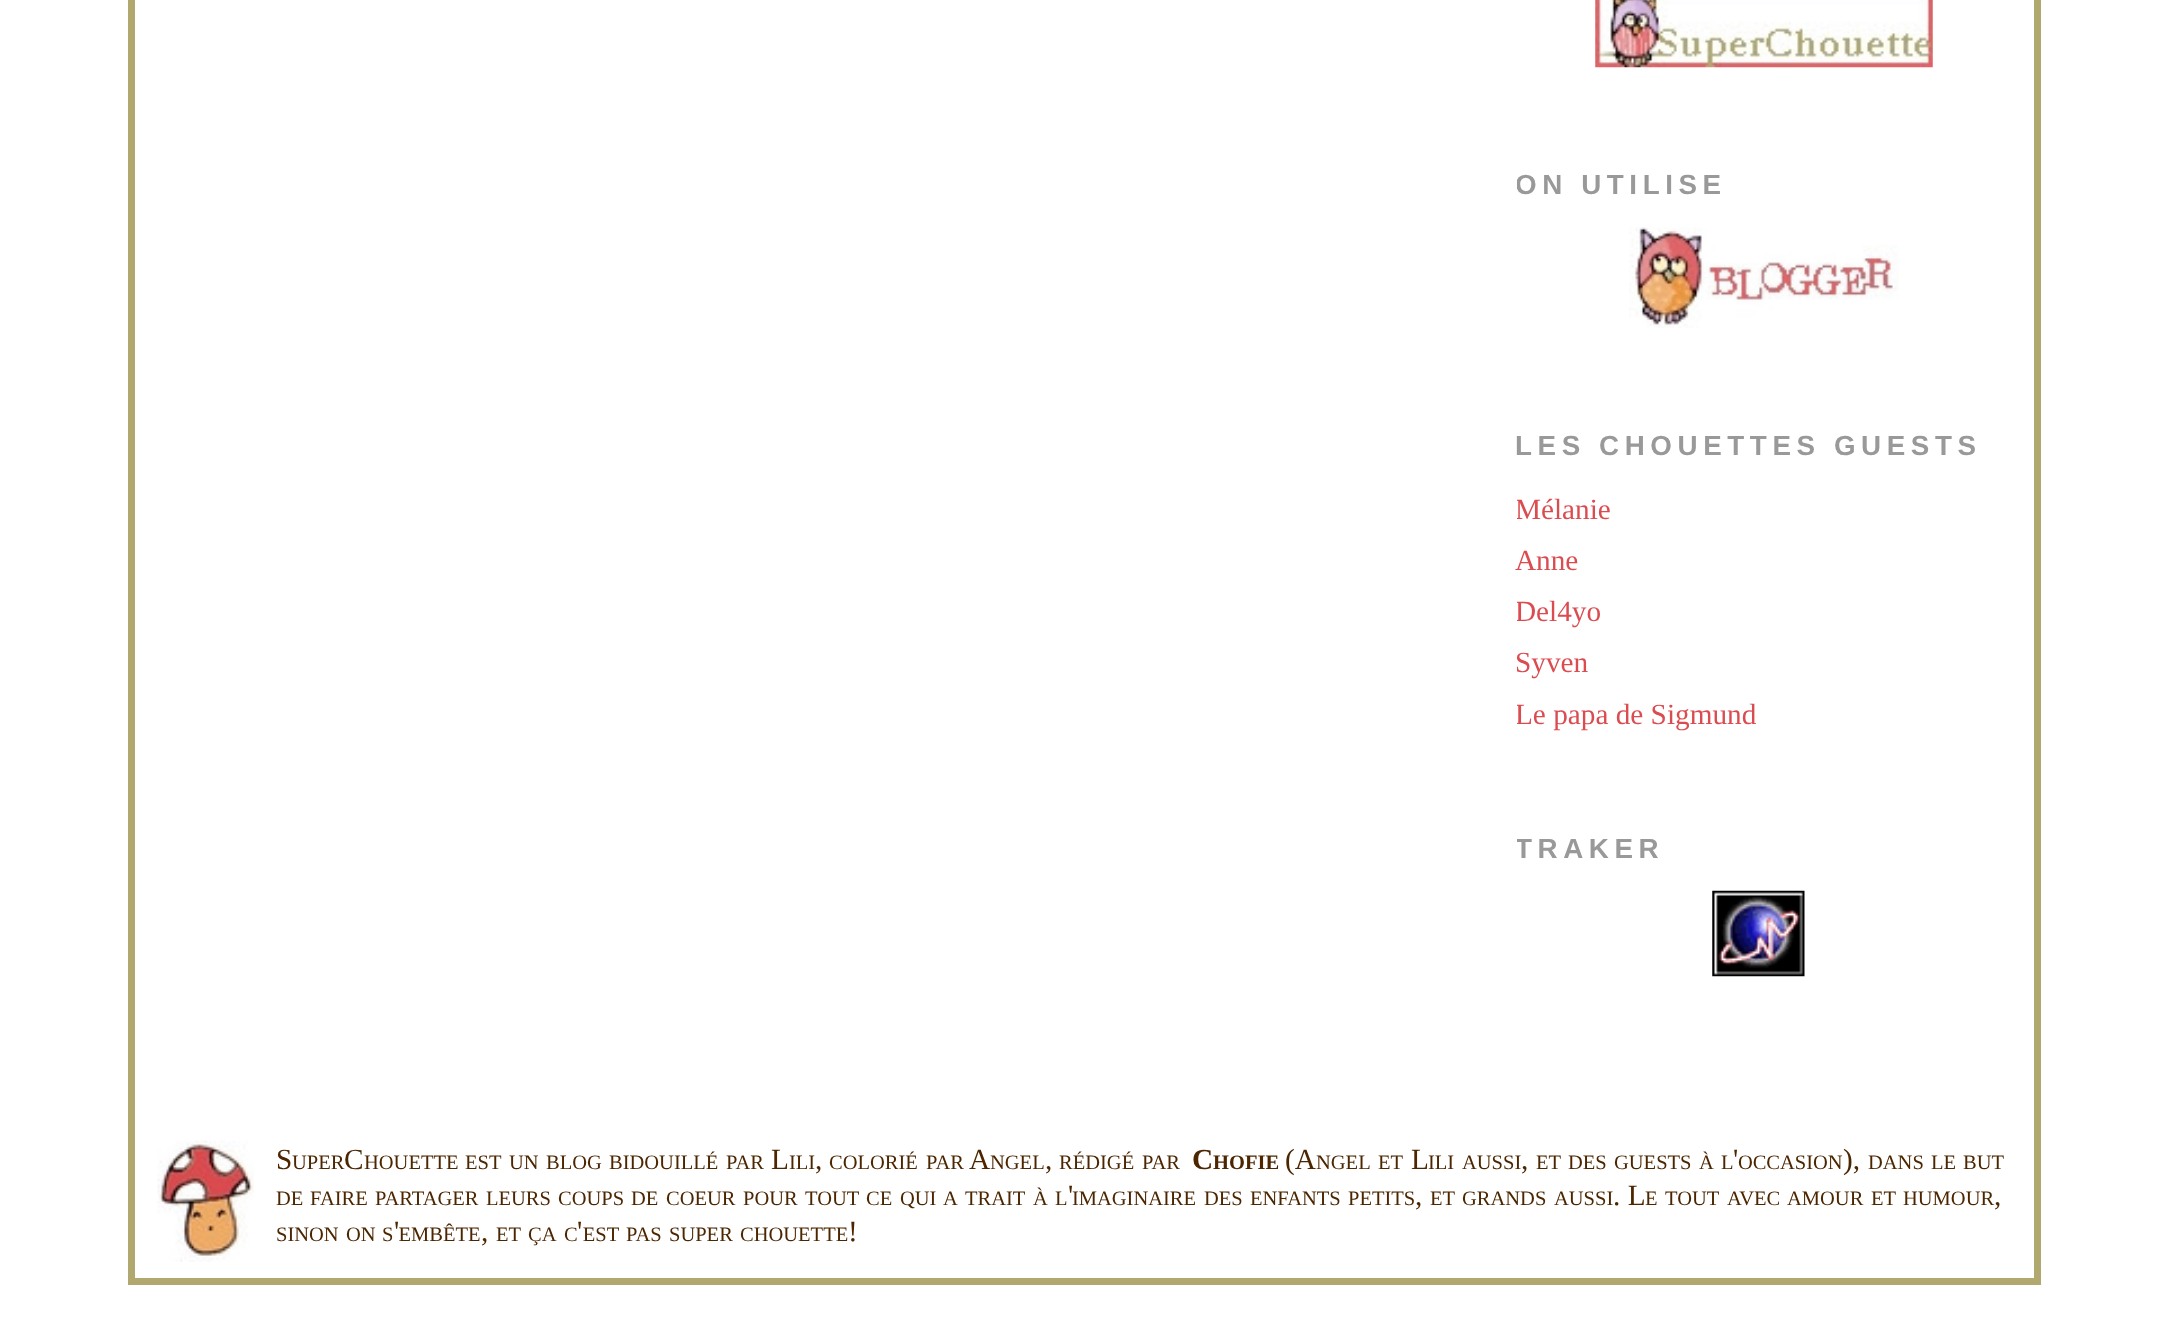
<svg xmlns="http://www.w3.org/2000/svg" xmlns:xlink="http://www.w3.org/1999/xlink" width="2166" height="1329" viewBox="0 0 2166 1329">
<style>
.cls-1{font:bold 27.75px Liberation Sans;letter-spacing:5.6px;fill:#999999}
.cls-2{font:29.25px Liberation Serif;fill:#db4c50}
.cls-3{font:29.25px Liberation Serif;fill:#4c2600}
.cls-4{font:20.5px Liberation Serif;fill:#4c2600}
.cls-5{font:bold 29.25px Liberation Serif;fill:#4c2600}
.cls-6{font:bold 20.5px Liberation Serif;fill:#4c2600}
</style>
<defs>
<clipPath id="clip1"><rect x="1517" y="0" width="495" height="1076"/></clipPath>
</defs>
<rect width="100%" height="100%" fill="#ffffff"/>
<rect fill="#b1a86f" x="2034" y="0" width="7" height="1285"/>
<rect fill="#b1a86f" x="128" y="1278" width="1913" height="7"/>
<rect fill="#b1a86f" x="128" y="0" width="7" height="1285"/>
<image xlink:href="image0.png" x="1595" y="0" width="338" height="68"/>
<image xlink:href="image1.png" x="1629" y="227" width="270" height="101"/>
<image xlink:href="image2.png" x="1712" y="890" width="93" height="87"/>
<image xlink:href="image3.png" x="157" y="1140" width="97" height="122"/>
<g clip-path="url(#clip1)">
<text class="cls-1" x="1515" y="194">ON UTILISE</text>
</g>
<text class="cls-1" x="1515" y="455">LES CHOUETTES GUESTS</text>
<g clip-path="url(#clip1)">
<text class="cls-2" x="1515" y="519">Mélanie</text>
</g>
<text class="cls-2" x="1515" y="570">Anne</text>
<g clip-path="url(#clip1)">
<text class="cls-2" x="1515" y="621">Del4yo</text>
</g>
<text class="cls-2" x="1515" y="672">Syven</text>
<g clip-path="url(#clip1)">
<text class="cls-2" x="1515" y="724">Le papa de Sigmund</text>
<text class="cls-1" x="1515" y="858">TRAKER</text>
</g>
<text class="cls-3" x="276" y="1169">S</text>
<text class="cls-4" x="292" y="1169">UPER</text>
<text class="cls-3" x="344" y="1169">C</text>
<text class="cls-4" x="364" y="1169">HOUETTE</text>
<text class="cls-4" x="465" y="1169">EST</text>
<text class="cls-4" x="509" y="1169">UN</text>
<text class="cls-4" x="546" y="1169">BLOG</text>
<text class="cls-4" x="609" y="1169">BIDOUILLÉ</text>
<text class="cls-4" x="726" y="1169">PAR</text>
<text class="cls-3" x="771" y="1169">L</text>
<text class="cls-4" x="789" y="1169">ILI</text>
<text class="cls-4" x="829" y="1169">COLORIÉ</text>
<text class="cls-4" x="926" y="1169">PAR</text>
<text class="cls-3" x="969" y="1169">A</text>
<text class="cls-4" x="990" y="1169">NGEL</text>
<text class="cls-4" x="1059" y="1169">RÉDIGÉ</text>
<text class="cls-4" x="1142" y="1169">PAR</text>
<text class="cls-5" x="1192" y="1169">C</text>
<text class="cls-6" x="1213" y="1169">HOFIE</text>
<text class="cls-3" x="1285" y="1169">(A</text>
<text class="cls-4" x="1316" y="1169">NGEL</text>
<text class="cls-4" x="1378" y="1169">ET</text>
<text class="cls-3" x="1411" y="1169">L</text>
<text class="cls-4" x="1428" y="1169">ILI</text>
<text class="cls-4" x="1462" y="1169">AUSSI</text>
<text class="cls-4" x="1536" y="1169">ET</text>
<text class="cls-4" x="1568" y="1169">DES</text>
<text class="cls-4" x="1614" y="1169">GUESTS</text>
<text class="cls-4" x="1699" y="1169">À</text>
<text class="cls-3" x="1733" y="1169">'</text>
<text class="cls-3" x="1843" y="1169">),</text>
<text class="cls-3" x="815" y="1169">,</text>
<text class="cls-3" x="1045" y="1169">,</text>
<text class="cls-3" x="1521" y="1169">,</text>
<text class="cls-4" x="1721" y="1169">L OCCASION</text>
<text class="cls-4" x="1868" y="1169">DANS</text>
<text class="cls-4" x="1931" y="1169">LE</text>
<text class="cls-4" x="1963" y="1169">BUT</text>
<text class="cls-4" x="276" y="1205">DE</text>
<text class="cls-4" x="310" y="1205">FAIRE</text>
<text class="cls-4" x="375" y="1205">PARTAGER</text>
<text class="cls-4" x="486" y="1205">LEURS</text>
<text class="cls-4" x="558" y="1205">COUPS</text>
<text class="cls-4" x="631" y="1205">DE</text>
<text class="cls-4" x="666" y="1205">COEUR</text>
<text class="cls-4" x="743" y="1205">POUR</text>
<text class="cls-4" x="805" y="1205">TOUT</text>
<text class="cls-4" x="866" y="1205">CE</text>
<text class="cls-4" x="900" y="1205">QUI</text>
<text class="cls-4" x="943" y="1205">A</text>
<text class="cls-4" x="965" y="1205">TRAIT</text>
<text class="cls-4" x="1033" y="1205">À</text>
<text class="cls-3" x="1068" y="1205">'</text>
<text class="cls-3" x="1613" y="1205">. L</text>
<text class="cls-4" x="1055" y="1205">L IMAGINAIRE</text>
<text class="cls-4" x="1204" y="1205">DES</text>
<text class="cls-4" x="1250" y="1205">ENFANTS</text>
<text class="cls-4" x="1348" y="1205">PETITS</text>
<text class="cls-3" x="1415" y="1205">,</text>
<text class="cls-4" x="1430" y="1205">ET</text>
<text class="cls-4" x="1462" y="1205">GRANDS</text>
<text class="cls-4" x="1554" y="1205">AUSSI</text>
<text class="cls-4" x="1645" y="1205">E</text>
<text class="cls-4" x="1665" y="1205">TOUT</text>
<text class="cls-4" x="1727" y="1205">AVEC</text>
<text class="cls-4" x="1787" y="1205">AMOUR</text>
<text class="cls-4" x="1871" y="1205">ET</text>
<text class="cls-4" x="1903" y="1205">HUMOUR</text>
<text class="cls-3" x="1994" y="1205">,</text>
<text class="cls-3" x="577" y="1241">'</text>
<text class="cls-3" x="848" y="1241">!</text>
<text class="cls-4" x="276" y="1241">SINON</text>
<text class="cls-4" x="346" y="1241">ON</text>
<text class="cls-4" x="382" y="1241">S EMBÊTE</text>
<text class="cls-3" x="394" y="1241">'</text>
<text class="cls-3" x="481" y="1241">,</text>
<text class="cls-4" x="496" y="1241">ET</text>
<text class="cls-4" x="528" y="1241">ÇA</text>
<text class="cls-4" x="564" y="1241">C EST</text>
<text class="cls-4" x="626" y="1241">PAS</text>
<text class="cls-4" x="669" y="1241">SUPER</text>
<text class="cls-4" x="740" y="1241">CHOUETTE</text>
</svg>
